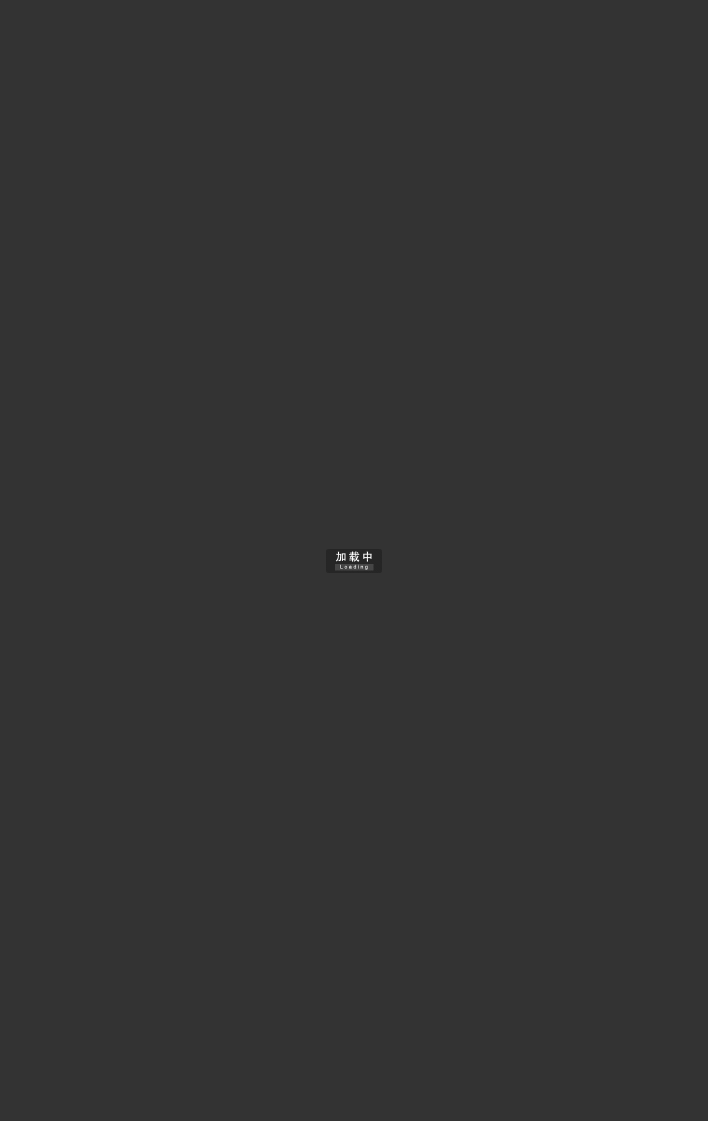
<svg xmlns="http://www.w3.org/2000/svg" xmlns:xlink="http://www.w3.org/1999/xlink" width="708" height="1121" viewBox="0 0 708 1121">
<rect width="100%" height="100%" fill="#333333"/>
<image xlink:href="image0.png" x="326" y="549" width="56" height="24"/>
</svg>
